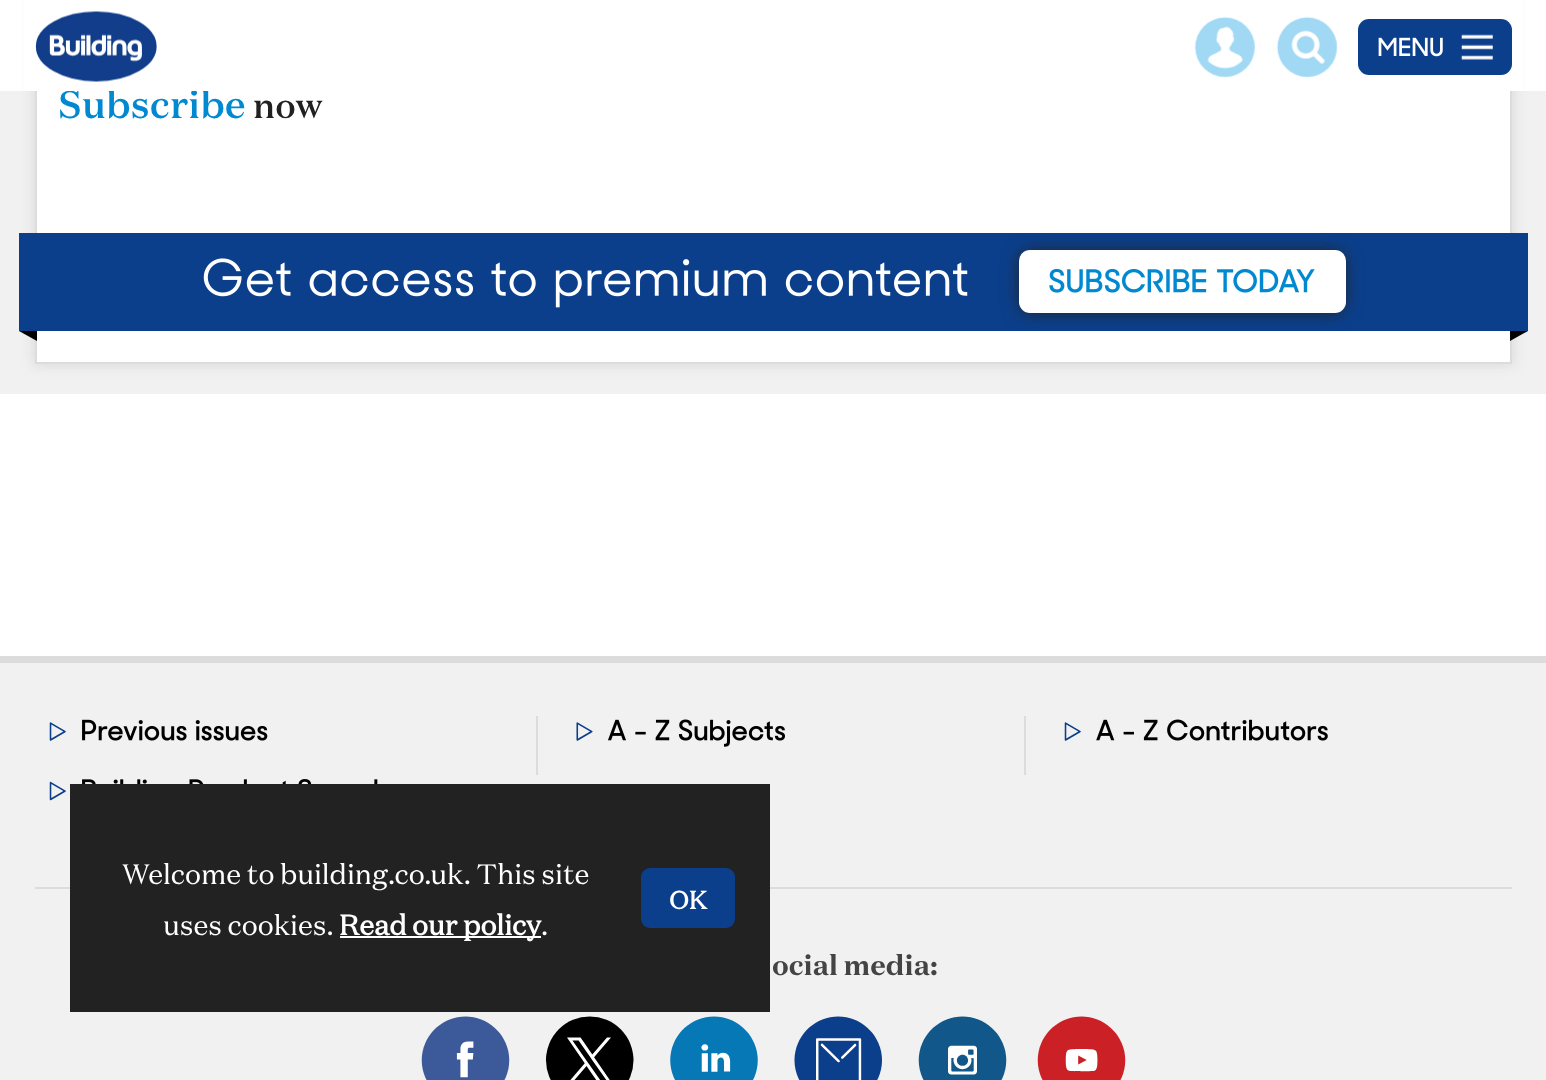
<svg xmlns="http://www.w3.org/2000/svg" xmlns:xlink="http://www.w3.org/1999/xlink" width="1546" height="1080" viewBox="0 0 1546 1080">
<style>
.cls-1{font:500 38.5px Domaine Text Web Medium;fill:#0089d0}
.cls-2{font:500 35px Domaine Text Web Medium;fill:#212121}
.cls-3{font:bold 28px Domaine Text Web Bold;fill:#444444}
.cls-4{font:28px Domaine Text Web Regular;fill:#ffffff}
.cls-5{font:bold 28px Domaine Text Web Regular;fill:#ffffff}
.cls-6{font:bold 25px Domaine Text Web Regular;fill:#ffffff}
</style>
<rect width="100%" height="100%" fill="#ffffff"/>
<rect fill="#f1f1f1" x="0" y="91" width="1546" height="303"/>
<rect fill="#dcdcdc" filter="blur(6px)" x="33" y="-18" width="1481" height="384"/>
<rect fill="#ffffff" x="37" y="91" width="1473" height="271"/>
<rect fill="none" stroke="#dcdcdc" stroke-width="2" x="36" y="-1" width="1475" height="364"/>
<rect fill="#0b3f8c" x="19" y="233" width="1509" height="98"/>
<path fill="#000000" d="M19 331H37V341Z"/>
<image xlink:href="image5.png" x="203" y="258" width="765" height="50"/>
<rect fill="#222222" filter="blur(9px)" x="1020" y="252" width="324" height="60" rx="9"/>
<rect fill="#ffffff" x="1019" y="250" width="327" height="63" rx="11"/>
<image xlink:href="image6.png" x="1049" y="268" width="266" height="25"/>
<path fill="#000000" d="M1510 331H1528L1510 341Z"/>
<rect fill="#f1f1f1" x="0" y="663" width="1546" height="417"/>
<rect fill="#dcdcdc" x="0" y="656" width="1546" height="7"/>
<image xlink:href="image7.png" x="49" y="722" width="17" height="19"/>
<image xlink:href="image8.png" x="82" y="719" width="186" height="22"/>
<rect fill="#dcdcdc" x="536" y="716" width="2" height="59"/>
<image xlink:href="image9.png" x="576" y="722" width="17" height="19"/>
<image xlink:href="image10.png" x="608" y="719" width="177" height="28"/>
<rect fill="#dcdcdc" x="1024" y="716" width="2" height="59"/>
<image xlink:href="image7.png" x="1064" y="722" width="17" height="19"/>
<image xlink:href="image11.png" x="1096" y="719" width="232" height="22"/>
<image xlink:href="image12.png" x="49" y="781" width="17" height="20"/>
<image xlink:href="image13.png" x="82" y="779" width="296" height="5"/>
<rect fill="#dcdcdc" x="35" y="887" width="1477" height="2"/>
<image xlink:href="image14.png" x="421" y="1016" width="89" height="64"/>
<image xlink:href="image15.png" x="545" y="1016" width="89" height="64"/>
<image xlink:href="image16.png" x="670" y="1016" width="88" height="64"/>
<image xlink:href="image17.png" x="794" y="1016" width="88" height="64"/>
<image xlink:href="image18.png" x="918" y="1016" width="89" height="64"/>
<image xlink:href="image19.png" x="1037" y="1016" width="89" height="64"/>
<rect fill="#222222" x="70" y="784" width="700" height="228"/>
<rect fill="#ffffff" x="340" y="936" width="201" height="2"/>
<rect fill="#0b3f8c" x="641" y="868" width="94" height="60" rx="9"/>
<text class="cls-1" x="58" y="118">Subscribe</text>
<rect fill="#ffffff" x="24" y="0" width="1499" height="91"/>
<rect fill="#0b3f8c" x="1358" y="19" width="154" height="56" rx="11"/>
<image xlink:href="image4.png" x="1461" y="34" width="32" height="26"/>
<image xlink:href="image3.png" x="1378" y="37" width="65" height="20"/>
<image xlink:href="image2.png" x="1276" y="16" width="62" height="62"/>
<image xlink:href="image1.png" x="1194" y="16" width="61" height="62"/>
<image xlink:href="image0.png" x="35" y="11" width="122" height="71"/>
<text class="cls-2" x="253" y="118">now</text>
<text class="cls-3" x="772" y="975">ocial media:</text>
<text class="cls-4" x="122" y="884">Welcome to building.co.uk. This site</text>
<text class="cls-4" x="163" y="935">uses cookies.</text>
<text class="cls-5" x="339" y="935">Read our policy</text>
<text class="cls-4" x="541" y="935">.</text>
<text class="cls-6" x="669" y="909">OK</text>
</svg>
